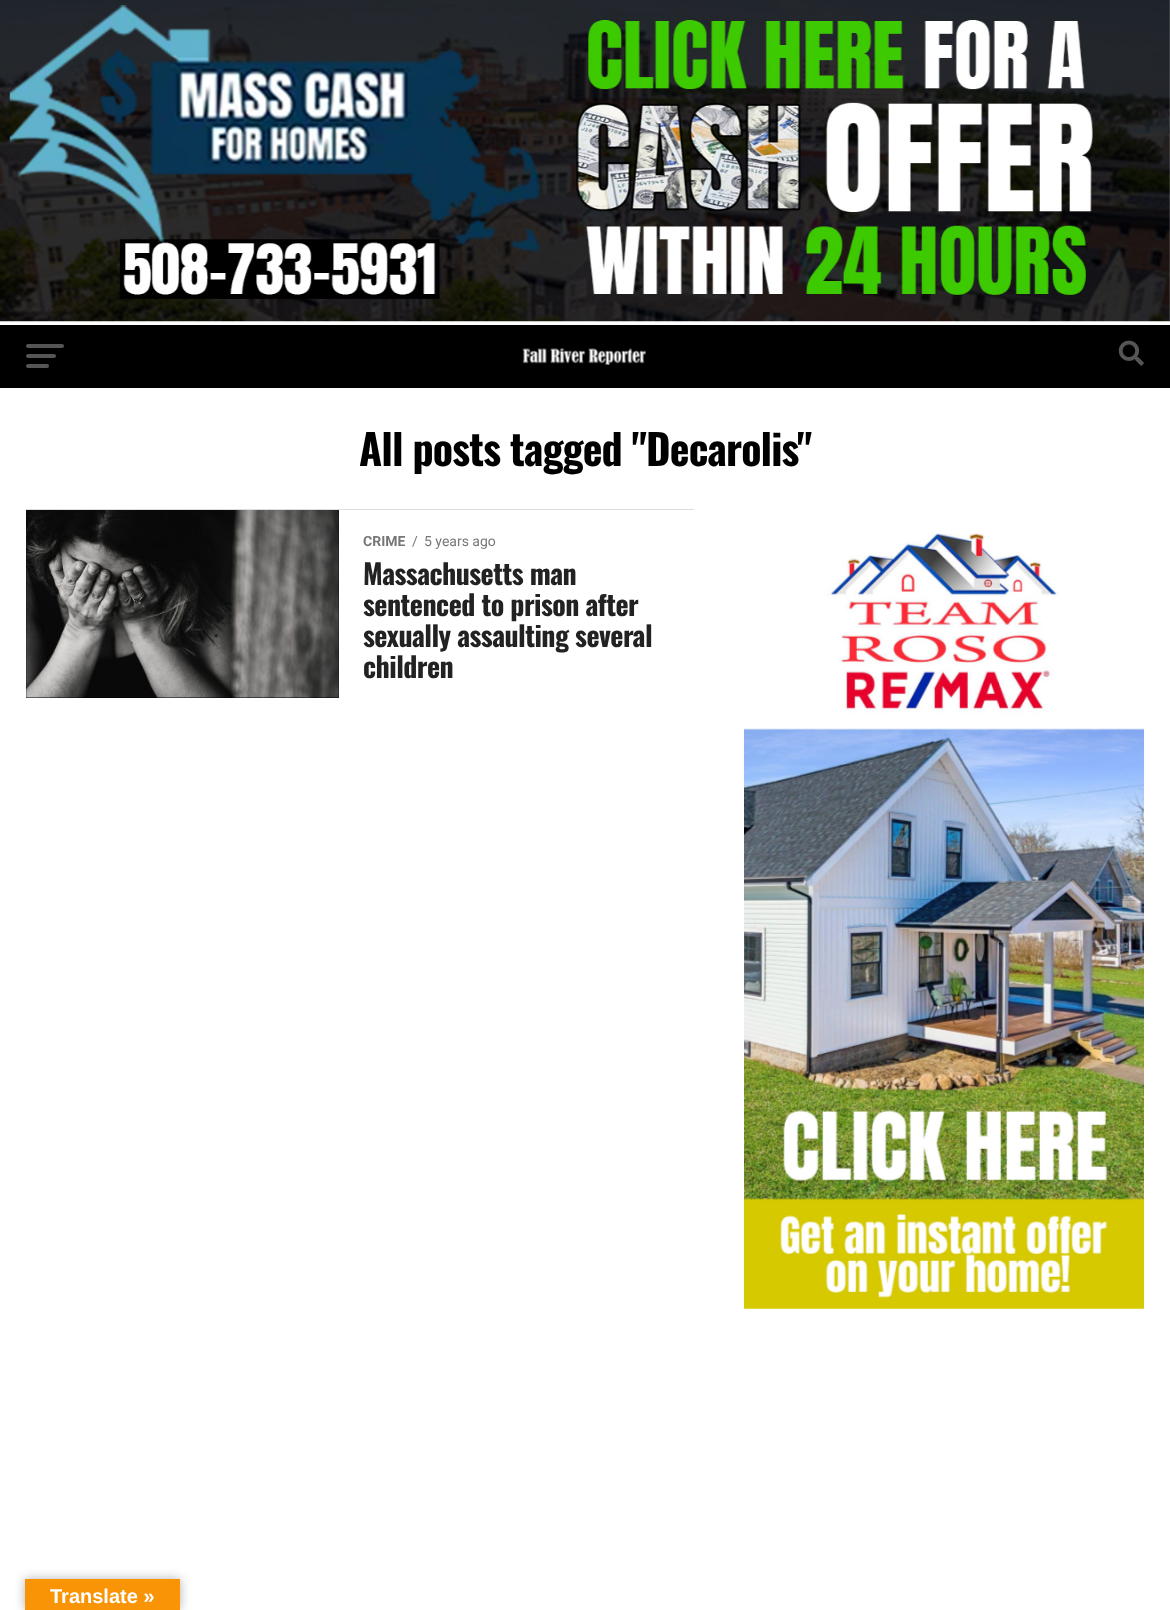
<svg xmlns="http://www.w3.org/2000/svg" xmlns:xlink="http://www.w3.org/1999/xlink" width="1170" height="1610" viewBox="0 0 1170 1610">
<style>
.cls-1{font:bold 42px Oswald;letter-spacing:-0.85px;fill:#000000}
.cls-2{font:bold 14px Roboto;fill:#777777}
.cls-3{font:14px Roboto;fill:#777777}
.cls-4{font:bold 28px Oswald;letter-spacing:-0.55px;fill:#222222}
.cls-5{font:bold 20px Liberation Sans;fill:#ffffff}
</style>
<rect width="100%" height="100%" fill="#ffffff"/>
<image xlink:href="image0.png" x="0" y="0" width="1170" height="322"/>
<rect fill="#000000" x="0" y="325" width="1170" height="63"/>
<rect fill="#555555" x="26" y="344" width="38" height="4" rx="2"/>
<rect fill="#555555" x="26" y="354" width="30" height="4" rx="2"/>
<rect fill="#555555" x="26" y="364" width="23" height="4" rx="2"/>
<image xlink:href="image1.png" x="522" y="348" width="125" height="17"/>
<image xlink:href="image2.png" x="1118" y="340" width="26" height="26"/>
<rect fill="#dddddd" x="26" y="509" width="668" height="1"/>
<rect fill="#000000" x="26" y="510" width="313" height="188"/>
<image xlink:href="image3.png" x="26" y="510" width="313" height="188"/>
<image xlink:href="image4.png" x="744" y="533" width="400" height="776"/>
<rect fill="#000000" fill-opacity="0.3" filter="blur(5.5px)" x="25" y="1579" width="155" height="31"/>
<rect fill="#f89406" x="25" y="1579" width="155" height="31"/>
<text class="cls-1" x="359" y="466">All posts tagged "Decarolis"</text>
<text class="cls-2" x="363" y="546">CRIME</text>
<text class="cls-3" x="412" y="546">/</text>
<text class="cls-3" x="424" y="546">5 years ago</text>
<text class="cls-4"><tspan x="363" y="585">Massachusetts man</tspan><tspan x="363" y="616">sentenced to prison after</tspan><tspan x="363" y="647">sexually assaulting several</tspan><tspan x="363" y="678">children</tspan></text>
<text class="cls-5" x="50" y="1603">Translate »</text>
</svg>
